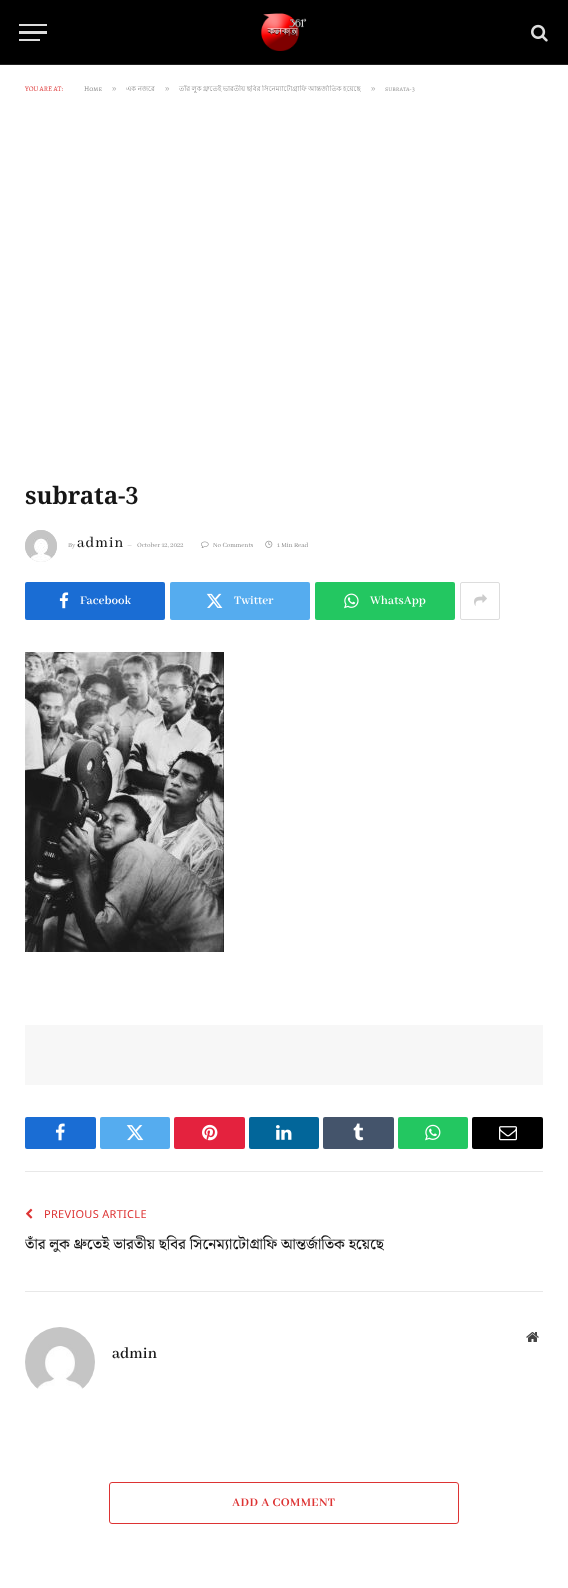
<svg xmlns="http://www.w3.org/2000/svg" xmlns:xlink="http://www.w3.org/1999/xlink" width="568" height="1588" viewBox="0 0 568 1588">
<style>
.cls-1{font:7px Alegreya SC;fill:#dd3333}
.cls-2{font:7px Alegreya SC;fill:#8a8a8a}
.cls-3{font:8px Liberation Sans;fill:#adadad}
.cls-4{font:7px Lohit Bengali;fill:#8a8a8a}
.cls-5{font:7px Alegreya SC;fill:#999999}
.cls-6{font:bold 24px Noto Serif Bengali;letter-spacing:-0.1px;fill:#161616}
.cls-7{font:7px Abhaya Libre;fill:#8a8a8a}
.cls-8{font:500 16px Abhaya Libre Medium;letter-spacing:1px;fill:#161616}
.cls-9{font:6px Abhaya Libre;fill:#8a8a8a}
.cls-10{font:600 13px Abhaya Libre SemiBold;fill:#ffffff}
.cls-11{font:11px Noto Sans Bengali;letter-spacing:0.3px;fill:#dd3333}
.cls-12{font:500 15px Noto Serif Bengali;fill:#161616}
.cls-13{font:600 17px Abhaya Libre SemiBold;fill:#161616}
.cls-14{font:bold 13px Abhaya Libre;letter-spacing:0.4px;fill:#dd3333}
</style>
<defs>
<clipPath id="clip1"><rect x="0" y="85" width="568" height="8"/></clipPath>
<clipPath id="clip2"><rect x="25" y="1172" width="518" height="84"/></clipPath>
</defs>
<rect width="100%" height="100%" fill="#ffffff"/>
<rect fill="#000000" x="0" y="0" width="568" height="64"/>
<rect fill="#222222" x="0" y="64" width="568" height="1"/>
<rect fill="#dddddd" x="19" y="39" width="21" height="2"/>
<rect fill="#dddddd" x="19" y="24" width="28" height="2"/>
<rect fill="#dddddd" x="19" y="31" width="28" height="3"/>
<image xlink:href="image0.png" x="261" y="13" width="46" height="38"/>
<image xlink:href="image1.png" x="531" y="24" width="17" height="18"/>
<rect fill="#000000" fill-opacity="0.2" filter="blur(0.5px)" x="25" y="530" width="32" height="32" rx="16"/>
<image xlink:href="image2.png" x="25" y="530" width="32" height="32"/>
<image xlink:href="image3.png" x="201" y="541" width="8" height="7"/>
<image xlink:href="image4.png" x="265" y="540" width="8" height="8"/>
<rect fill="#1a6dd4" x="25" y="582" width="140" height="38" rx="2"/>
<image xlink:href="image5.png" x="59" y="592" width="10" height="17"/>
<rect fill="#55acef" x="170" y="582" width="140" height="38" rx="2"/>
<image xlink:href="image6.png" x="206" y="593" width="17" height="15"/>
<rect fill="#23c761" x="315" y="582" width="140" height="38" rx="2"/>
<image xlink:href="image7.png" x="344" y="593" width="15" height="16"/>
<rect fill="none" stroke="#dddddd" x="460.5" y="582.5" width="39" height="37" rx="1.5"/>
<image xlink:href="image8.png" x="474" y="594" width="13" height="12"/>
<image xlink:href="image9.png" x="25" y="652" width="199" height="300"/>
<rect fill="#f7f7f7" x="25" y="1025" width="518" height="60"/>
<rect fill="#1a6dd4" x="25" y="1117" width="71" height="32" rx="2"/>
<image xlink:href="image10.png" x="55" y="1123" width="10" height="18"/>
<rect fill="#55acef" x="100" y="1117" width="70" height="32" rx="2"/>
<image xlink:href="image11.png" x="126" y="1125" width="18" height="16"/>
<rect fill="#e4223e" x="174" y="1117" width="71" height="32" rx="2"/>
<image xlink:href="image12.png" x="202" y="1124" width="16" height="17"/>
<rect fill="#02669a" x="249" y="1117" width="70" height="32" rx="2"/>
<image xlink:href="image13.png" x="276" y="1125" width="16" height="15"/>
<rect fill="#44546b" x="323" y="1117" width="71" height="32" rx="2"/>
<image xlink:href="image14.png" x="353" y="1123" width="11" height="18"/>
<rect fill="#23c761" x="398" y="1117" width="70" height="32" rx="2"/>
<image xlink:href="image15.png" x="425" y="1124" width="16" height="17"/>
<rect fill="#000000" x="472" y="1117" width="71" height="32" rx="2"/>
<image xlink:href="image16.png" x="499" y="1126" width="18" height="15"/>
<rect fill="#e8e8e8" x="25" y="1171" width="518" height="1"/>
<image xlink:href="image17.png" x="26" y="1208" width="7" height="11"/>
<rect fill="#e8e8e8" x="25" y="1291" width="518" height="1"/>
<image xlink:href="image18.png" x="25" y="1327" width="70" height="62"/>
<image xlink:href="image19.png" x="526" y="1332" width="13" height="10"/>
<rect fill="none" stroke="#dd3333" x="109.5" y="1482.5" width="349" height="41" rx="2.5"/>
<text class="cls-1" x="25" y="91">YOU ARE AT:</text>
<text class="cls-2" x="84" y="91">Home</text>
<text class="cls-3" x="112" y="91">»</text>
<text class="cls-4" x="126" y="91" word-spacing="-0.5">এক নজরে</text>
<text class="cls-3" x="165" y="91">»</text>
<g clip-path="url(#clip1)">
<text class="cls-4" x="179" y="91" word-spacing="-0.5">তাঁর লুক থ্রুতেই ভারতীয় ছবির সিনেম্যাটোগ্রাফি আন্তর্জাতিক হয়েছে</text>
</g>
<text class="cls-3" x="371" y="91">»</text>
<text class="cls-5" x="385" y="91">subrata-3</text>
<text class="cls-6" x="25" y="504">subrata-3</text>
<text class="cls-7" x="68" y="547">By</text>
<text class="cls-8" x="77" y="547">admin</text>
<text class="cls-9" x="127" y="547">—</text>
<text class="cls-7" x="137" y="547">October 12, 2022</text>
<text class="cls-7" x="213" y="547">No Comments</text>
<text class="cls-7" x="277" y="547">1 Min Read</text>
<text class="cls-10" x="80" y="604">Facebook</text>
<text class="cls-10" x="234" y="604">Twitter</text>
<text class="cls-10" x="370" y="604">WhatsApp</text>
<text class="cls-11" x="44" y="1218">PREVIOUS ARTICLE</text>
<g clip-path="url(#clip2)">
<text class="cls-12" x="25" y="1249">তাঁর লুক থ্রুতেই ভারতীয় ছবির সিনেম্যাটোগ্রাফি আন্তর্জাতিক হয়েছে</text>
</g>
<text class="cls-13" x="112" y="1358">admin</text>
<text class="cls-14" x="232" y="1506">ADD A COMMENT</text>
</svg>
